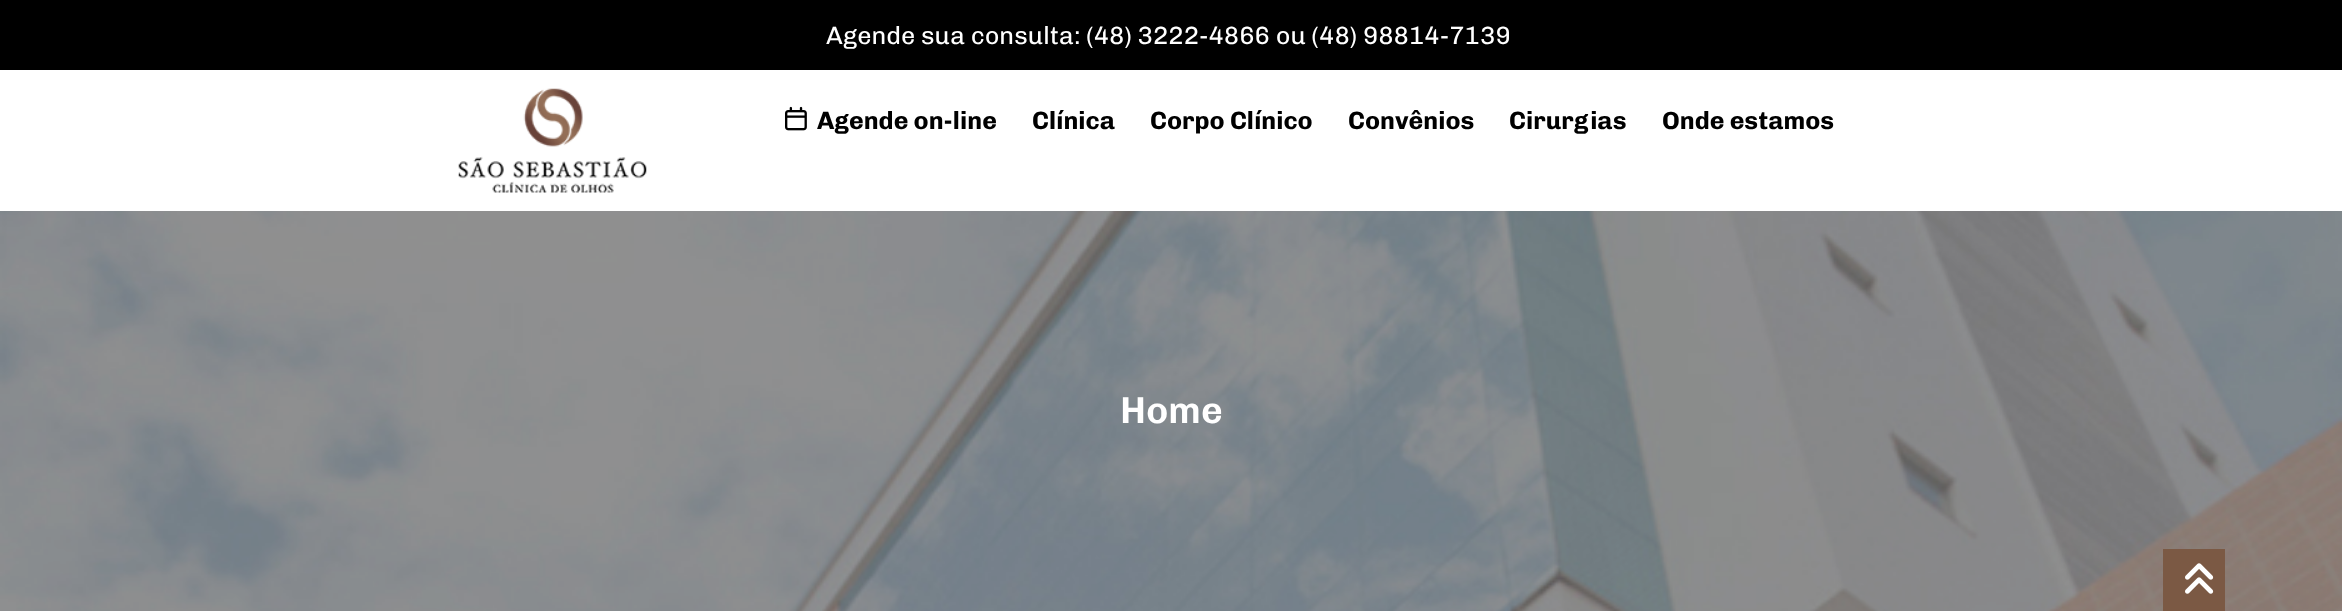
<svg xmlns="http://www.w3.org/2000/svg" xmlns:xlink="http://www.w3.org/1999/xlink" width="2342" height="611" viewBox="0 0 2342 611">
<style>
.cls-1{font:25px Chivo;fill:#ffffff}
.cls-2{font:bold 25px Chivo;fill:#000000}
.cls-3{font:600 37.5px Chivo;fill:#ffffff}
</style>
<rect width="100%" height="100%" fill="#ffffff"/>
<rect fill="#000000" x="0" y="0" width="2342" height="70"/>
<image xlink:href="image0.png" x="458" y="88" width="189" height="105"/>
<image xlink:href="image1.png" x="785" y="106" width="22" height="25"/>
<image xlink:href="image2.png" x="0" y="211" width="2342" height="400"/>
<rect fill="#7b5944" x="2163" y="549" width="62" height="62"/>
<image xlink:href="image3.png" x="2185" y="563" width="29" height="31"/>
<text class="cls-1" x="826" y="44">Agende sua consulta: (48) 3222-4866 ou (48) 98814-7139</text>
<text class="cls-2" x="817" y="129">Agende on-line</text>
<text class="cls-2" x="1032" y="129">Clínica</text>
<text class="cls-2" x="1150" y="129">Corpo Clínico</text>
<text class="cls-2" x="1348" y="129">Convênios</text>
<text class="cls-2" x="1509" y="129">Cirurgias</text>
<text class="cls-2" x="1662" y="129">Onde estamos</text>
<text class="cls-3" x="1120" y="423">Home</text>
</svg>
